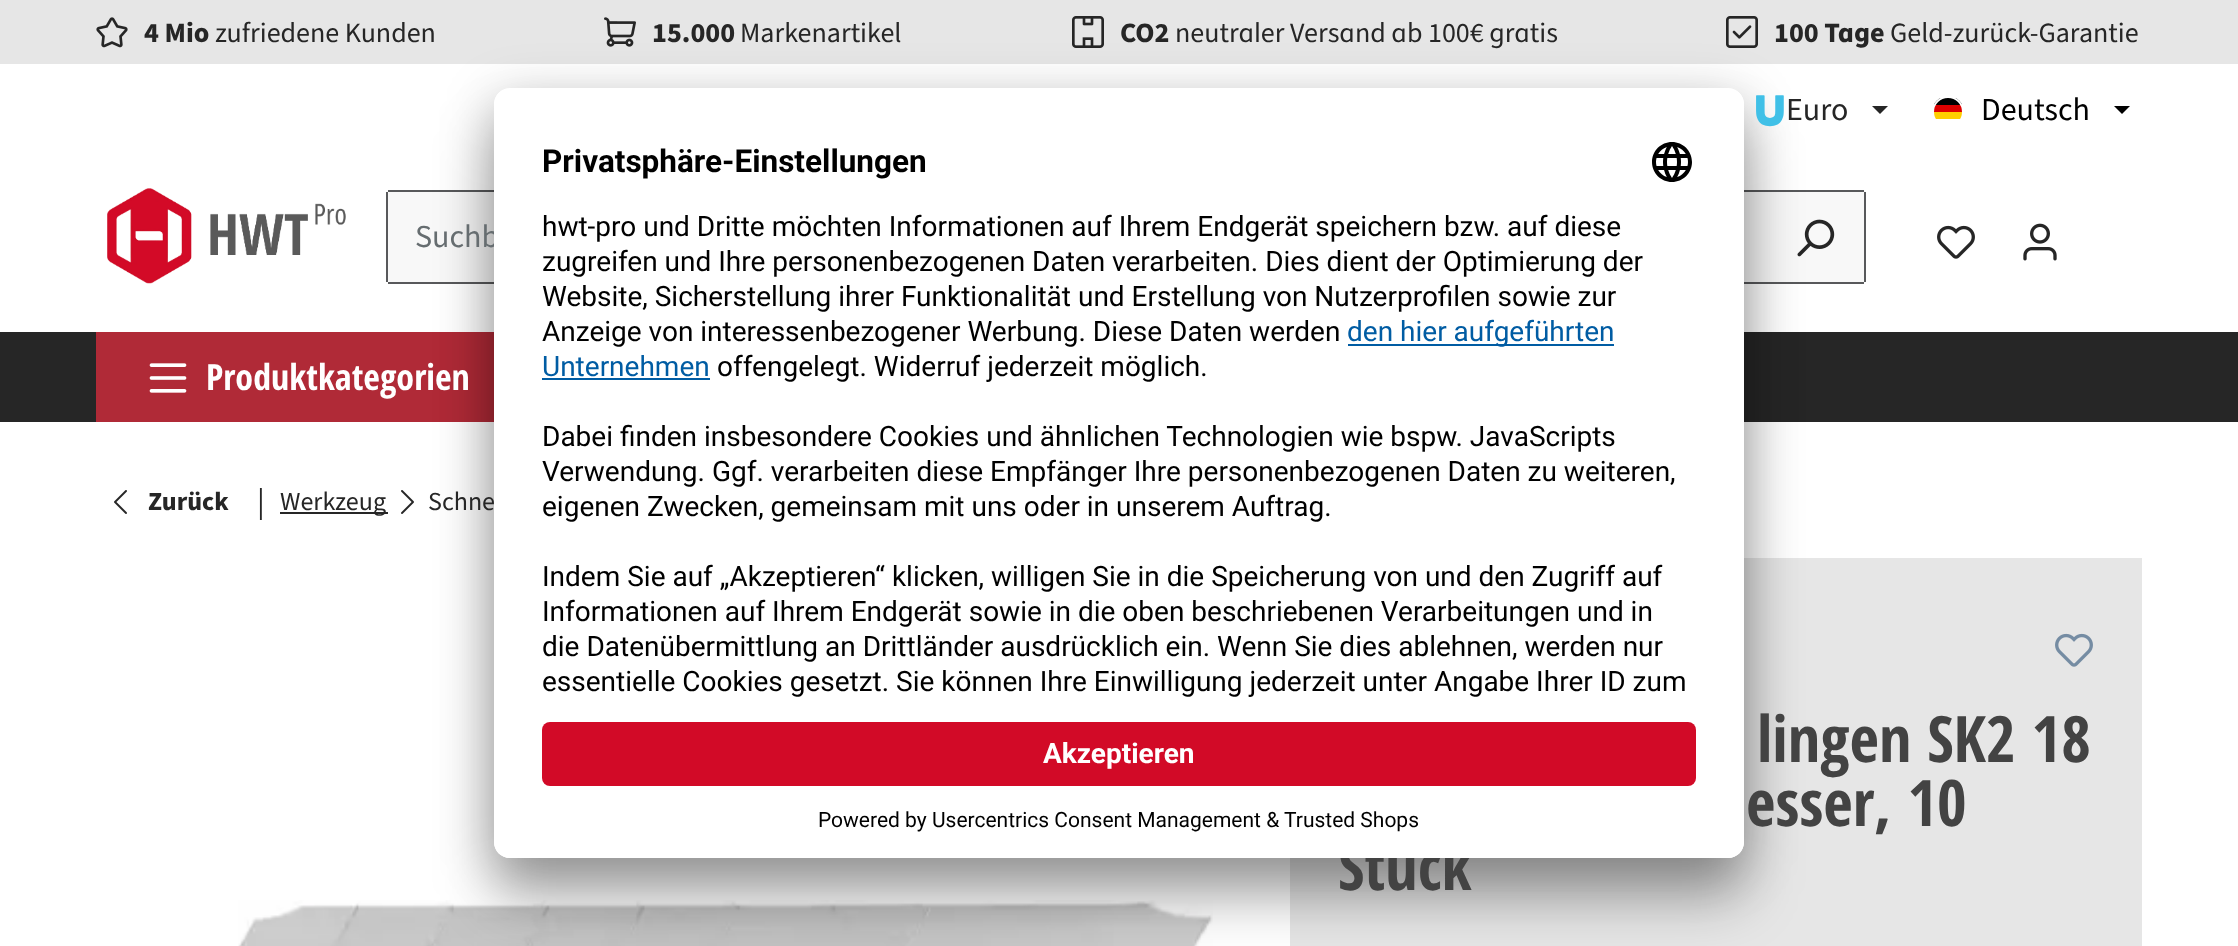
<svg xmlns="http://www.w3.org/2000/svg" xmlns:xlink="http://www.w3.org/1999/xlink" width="2238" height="946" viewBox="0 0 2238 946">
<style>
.cls-1{font:bold 28px Source Sans Pro;fill:#262626}
.cls-2{font:28px Source Sans Pro;fill:#262626}
.cls-3{font:28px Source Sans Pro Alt;fill:#262626}
.cls-4{font:bold 28px Source Sans Pro Alt;fill:#262626}
.cls-5{font:32px Noto Color Emoji;fill:#262626}
.cls-6{font:32px Source Sans Pro;fill:#262626}
.cls-7{font:32px Source Sans Pro;fill:#000000}
.cls-8{font:32px Source Sans Pro;fill:#666d70}
.cls-9{font:bold 36px Open Sans Condensed;fill:#ffffff}
.cls-10{font:bold 26px Source Sans Pro;fill:#262626}
.cls-11{font:26px Source Sans Pro;fill:#262626}
.cls-12{font:bold 64px Open Sans Condensed;fill:#434343}
.cls-13{font:bold 31.5px Roboto;fill:#000000}
.cls-14{font:28px Roboto;fill:#000000}
.cls-15{font:28px Roboto;fill:#005ca3}
.cls-16{font:21px Roboto;fill:#000000}
.cls-17{font:bold 28px Roboto;fill:#ffffff}
</style>
<defs>
<clipPath id="clip1"><rect x="1932" y="96" width="32" height="32" rx="16"/></clipPath>
<clipPath id="clip2"><rect x="494" y="88" width="1250" height="770" rx="16"/></clipPath>
<clipPath id="clip3"><path d="M510 88H1728C1737 88 1744 95 1744 104V706H494V104C494 95 501 88 510 88Z"/></clipPath>
</defs>
<rect width="100%" height="100%" fill="#ffffff"/>
<rect fill="#e6e6e6" x="0" y="0" width="2238" height="64"/>
<image xlink:href="image0.png" x="96" y="17" width="32" height="31"/>
<image xlink:href="image1.png" x="604" y="17" width="32" height="30"/>
<image xlink:href="image2.png" x="1072" y="16" width="32" height="32"/>
<image xlink:href="image3.png" x="1726" y="16" width="32" height="32"/>
<path fill="#262626" d="M1872 106H1888L1880 114Z"/>
<rect fill="#ffce00" x="1934" y="112" width="28" height="7"/>
<g clip-path="url(#clip1)">
<rect fill="#000000" x="1934" y="98" width="28" height="7"/>
</g>
<rect fill="#dd0000" x="1934" y="105" width="28" height="7"/>
<circle fill="none" stroke="#ffffff" stroke-width="2" cx="1948" cy="112" r="15"/>
<path fill="#000000" d="M2114 106H2130L2122 114Z"/>
<image xlink:href="image4.png" x="107" y="188" width="239" height="96"/>
<path fill="#f8f8f8" d="M390 192H1768V282H390C389 282 388 281 388 280V194C388 193 389 192 390 192Z"/>
<rect fill="#58595b" x="388" y="190" width="1380" height="2"/>
<rect fill="#58595b" x="388" y="282" width="1380" height="2"/>
<rect fill="#58595b" x="386" y="192" width="2" height="90"/>
<path fill="#f8f8f8" d="M1766 190H1862C1864 190 1866 192 1866 194V280C1866 282 1864 284 1862 284H1766Z"/>
<rect fill="#58595b" x="1766" y="190" width="98" height="2"/>
<rect fill="#58595b" x="1864" y="192" width="2" height="90"/>
<rect fill="#58595b" x="1766" y="282" width="98" height="2"/>
<image xlink:href="image5.png" x="1797" y="219" width="38" height="38"/>
<image xlink:href="image6.png" x="1937" y="225" width="38" height="34"/>
<image xlink:href="image7.png" x="2023" y="223" width="34" height="38"/>
<rect fill="#262626" x="0" y="332" width="2238" height="90"/>
<rect fill="#b02a37" x="96" y="332" width="398" height="90"/>
<image xlink:href="image8.png" x="149" y="363" width="38" height="30"/>
<image xlink:href="image11.png" x="401" y="490" width="13" height="24"/>
<rect fill="#e6e6e6" x="1290" y="558" width="852" height="388"/>
<image xlink:href="image13.png" x="238" y="900" width="975" height="46"/>
<rect fill="#000000" fill-opacity="0.3" filter="blur(28px)" x="494" y="128" width="1250" height="770" rx="16"/>
<rect fill="#000000" fill-opacity="0.22" filter="blur(26px)" x="494" y="98" width="1250" height="770" rx="16"/>
<image xlink:href="image10.png" x="114" y="490" width="13" height="24"/>
<rect fill="#262626" x="280" y="512" width="108" height="2"/>
<image xlink:href="image12.png" x="2055" y="633" width="38" height="34"/>
<text class="cls-1" x="144" y="42">4 Mio</text>
<text class="cls-2" x="215" y="42">zufriedene Kunden</text>
<text class="cls-1" x="652" y="42">15.000</text>
<text class="cls-2" x="740" y="42">Markenartikel</text>
<text class="cls-1" x="1120" y="42">CO2</text>
<text class="cls-3" x="1175" y="42">neutraler Versand ab 100€ gratis</text>
<text class="cls-4" x="1774" y="42">100 Tage</text>
<text class="cls-2" x="1890" y="42">Geld-zurück-Garantie</text>
<text class="cls-5" x="1750" y="120">🇺</text>
<text class="cls-6" x="1786" y="120">Euro</text>
<text class="cls-7" x="1981" y="120">Deutsch</text>
<text class="cls-8" x="415" y="247">Suchb</text>
<text class="cls-9" x="206" y="390">Produktkategorien</text>
<text class="cls-10" x="148" y="510">Zurück</text>
<text class="cls-6" x="257" y="512">|</text>
<text class="cls-11" x="280" y="510">Werkzeug</text>
<text class="cls-11" x="428" y="510">Schne</text>
<text class="cls-12" x="1757" y="762">lingen SK2 18</text>
<text class="cls-12" x="1746" y="826">esser, 10</text>
<text class="cls-12" x="1338" y="890">Stück</text>
<rect fill="#ffffff" x="494" y="88" width="1250" height="770" rx="16"/>
<g clip-path="url(#clip2)">
<g clip-path="url(#clip3)">
<rect fill="#ffffff" x="494" y="90" width="1250" height="616"/>
</g>
</g>
<image xlink:href="image9.png" x="1652" y="142" width="40" height="40"/>
<text class="cls-13" x="542" y="172">Privatsphäre-Einstellungen</text>
<text class="cls-14" x="542" y="691">essentielle Cookies gesetzt. Sie können Ihre Einwilligung jederzeit unter Angabe Ihrer ID zum</text>
<text class="cls-14" x="542" y="656">die Datenübermittlung an Drittländer ausdrücklich ein. Wenn Sie dies ablehnen, werden nur</text>
<text class="cls-14" x="542" y="621">Informationen auf Ihrem Endgerät sowie in die oben beschriebenen Verarbeitungen und in</text>
<text class="cls-14" x="542" y="586">Indem Sie auf „Akzeptieren“ klicken, willigen Sie in die Speicherung von und den Zugriff auf</text>
<text class="cls-14" x="542" y="516">eigenen Zwecken, gemeinsam mit uns oder in unserem Auftrag.</text>
<text class="cls-14" x="542" y="481">Verwendung. Ggf. verarbeiten diese Empfänger Ihre personenbezogenen Daten zu weiteren,</text>
<text class="cls-14" x="542" y="446">Dabei finden insbesondere Cookies und ähnlichen Technologien wie bspw. JavaScripts</text>
<text class="cls-14" x="717" y="376">offengelegt. Widerruf jederzeit möglich.</text>
<text class="cls-15" x="542" y="376">Unternehmen</text>
<rect fill="#005ca3" x="542" y="378" width="168" height="2"/>
<rect fill="#005ca3" x="1348" y="344" width="266" height="2"/>
<text class="cls-15" x="1347" y="341">den hier aufgeführten</text>
<text class="cls-14" x="542" y="341">Anzeige von interessenbezogener Werbung. Diese Daten werden</text>
<text class="cls-14" x="542" y="306">Website, Sicherstellung ihrer Funktionalität und Erstellung von Nutzerprofilen sowie zur</text>
<text class="cls-14" x="542" y="271">zugreifen und Ihre personenbezogenen Daten verarbeiten. Dies dient der Optimierung der</text>
<text class="cls-14" x="542" y="236">hwt-pro und Dritte möchten Informationen auf Ihrem Endgerät speichern bzw. auf diese</text>
<path fill="#ffffff" d="M494 706H1744V842C1744 851 1737 858 1728 858H510C501 858 494 851 494 842Z"/>
<text class="cls-16" x="818" y="827">Powered by Usercentrics Consent Management &amp; Trusted Shops</text>
<rect fill="#d20a27" x="542" y="722" width="1154" height="64" rx="8"/>
<text class="cls-17" x="1043" y="763">Akzeptieren</text>
</svg>
